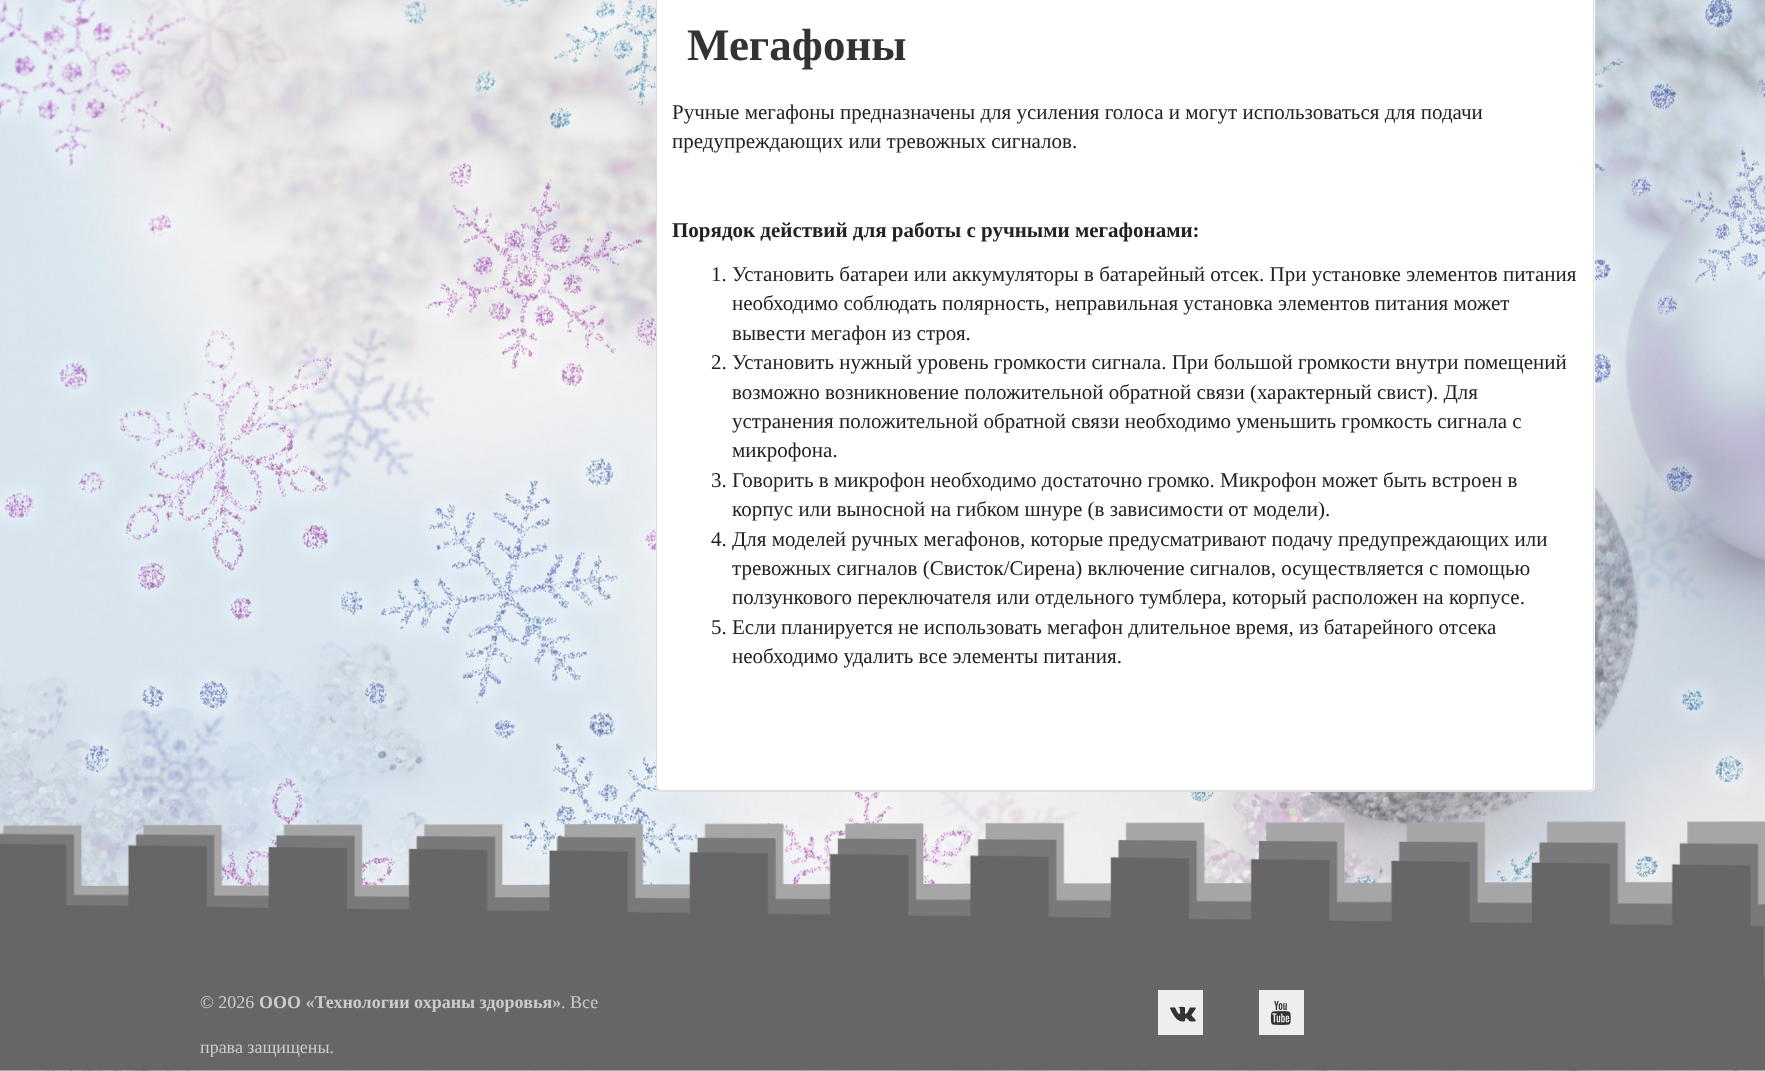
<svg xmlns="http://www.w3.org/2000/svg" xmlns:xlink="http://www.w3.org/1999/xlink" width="1765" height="1071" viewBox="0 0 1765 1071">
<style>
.cls-1{font:bold 45px Liberation Serif;fill:#333333}
.cls-2{font:21px Liberation Serif;fill:#222222}
.cls-3{font:bold 21px Liberation Serif;fill:#222222}
.cls-4{font:18px Liberation Serif;fill:#cccccc}
.cls-5{font:bold 18px Liberation Serif;fill:#cccccc}
</style>
<rect width="100%" height="100%" fill="#ffffff"/>
<image xlink:href="image0.png" x="0" y="0" width="1765" height="1071"/>
<path fill="#ffffff" d="M656-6H1589C1592.5-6 1595-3.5 1595 0V786C1595 789.5 1592.5 792 1589 792H662C658.5 792 656 789.5 656 786Z"/>
<path fill="#dddddd" fill-rule="evenodd" d="M656-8H1588C1592-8 1594-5 1594-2V786C1594 789 1592 792 1588 792H662C658 792 656 789 656 786ZM657-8H1588C1591-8 1593-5 1593-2V786C1593 788 1591 790 1588 790H662C659 790 657 788 657 786Z"/>
<image xlink:href="image1.png" x="0" y="821" width="1765" height="250"/>
<rect fill="#eeeeee" x="1158" y="990" width="45" height="45"/>
<image xlink:href="image2.png" x="1170" y="1006" width="26" height="16"/>
<rect fill="#eeeeee" x="1259" y="990" width="45" height="45"/>
<image xlink:href="image3.png" x="1270" y="1000" width="21" height="25"/>
<text class="cls-1" x="687" y="60">Мегафоны</text>
<text class="cls-2"><tspan x="672" y="119">Ручные мегафоны предназначены для усиления голоса и могут использоваться для подачи</tspan><tspan x="672" y="148">предупреждающих или тревожных сигналов.</tspan></text>
<text class="cls-3" x="672" y="237">Порядок действий для работы с ручными мегафонами:</text>
<text class="cls-2" x="711" y="281">1. Установить батареи или аккумуляторы в батарейный отсек. При установке элементов питания</text>
<text class="cls-2"><tspan x="732" y="310">необходимо соблюдать полярность, неправильная установка элементов питания может</tspan><tspan x="732" y="340">вывести мегафон из строя.</tspan></text>
<text class="cls-2" x="711" y="369">2. Установить нужный уровень громкости сигнала. При большой громкости внутри помещений</text>
<text class="cls-2"><tspan x="732" y="399">возможно возникновение положительной обратной связи (характерный свист). Для</tspan><tspan x="732" y="428">устранения положительной обратной связи необходимо уменьшить громкость сигнала с</tspan><tspan x="732" y="457">микрофона.</tspan></text>
<text class="cls-2" x="711" y="487">3. Говорить в микрофон необходимо достаточно громко. Микрофон может быть встроен в</text>
<text class="cls-2" x="732" y="516">корпус или выносной на гибком шнуре (в зависимости от модели).</text>
<text class="cls-2" x="711" y="546">4. Для моделей ручных мегафонов, которые предусматривают подачу предупреждающих или</text>
<text class="cls-2"><tspan x="732" y="575">тревожных сигналов (Свисток/Сирена) включение сигналов, осуществляется с помощью</tspan><tspan x="732" y="604">ползункового переключателя или отдельного тумблера, который расположен на корпусе.</tspan></text>
<text class="cls-2" x="711" y="634">5. Если планируется не использовать мегафон длительное время, из батарейного отсека</text>
<text class="cls-2" x="732" y="663">необходимо удалить все элементы питания.</text>
<text class="cls-4" x="200" y="1008">© 2026</text>
<text class="cls-5" x="259" y="1008">ООО «Технологии охраны здоровья»</text>
<text class="cls-4" x="561" y="1008">. Все</text>
<text class="cls-4" x="200" y="1053">права защищены.</text>
</svg>
